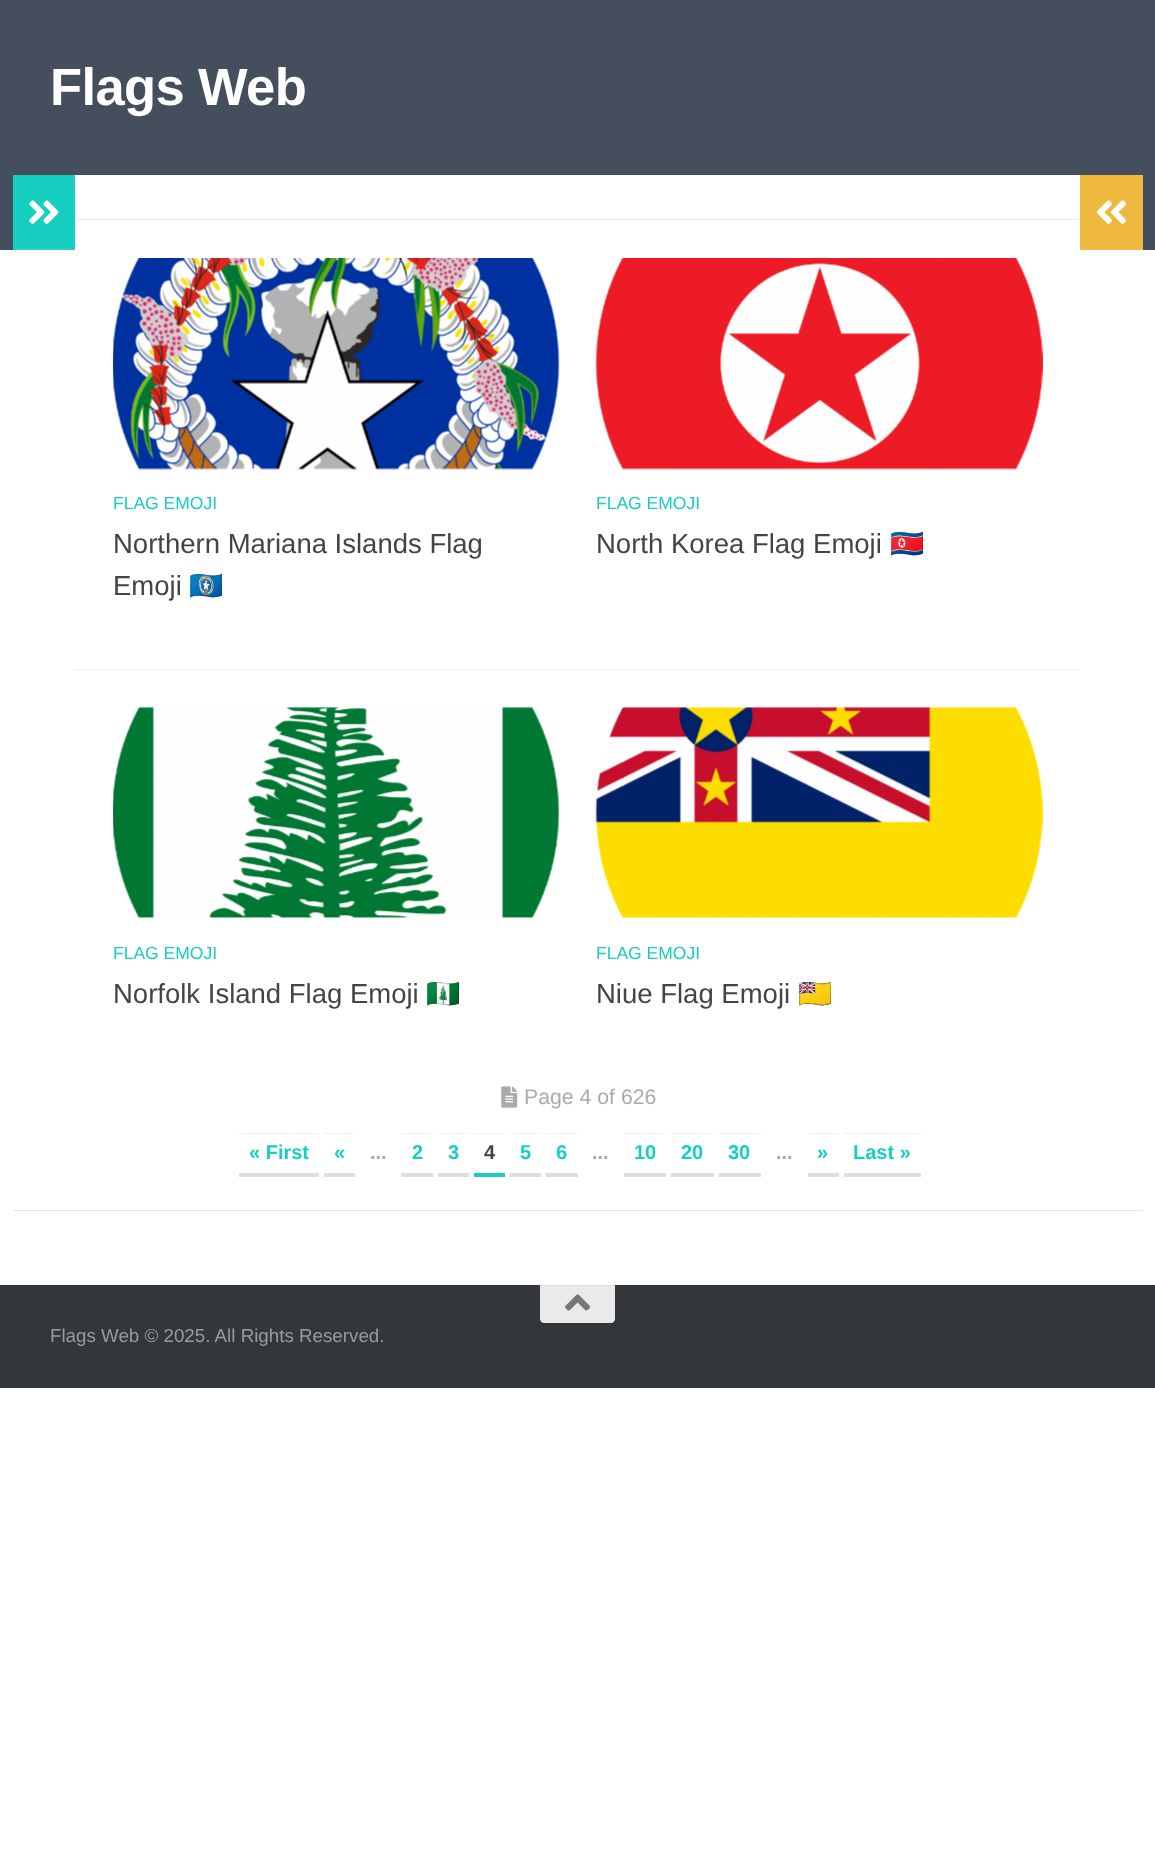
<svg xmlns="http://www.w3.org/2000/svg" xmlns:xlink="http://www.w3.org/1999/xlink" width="1155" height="1863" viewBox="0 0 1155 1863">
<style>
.cls-1{font:bold 52.5px Liberation Sans;letter-spacing:-0.6px;fill:#ffffff}
.cls-2{font:17.5px Liberation Sans;fill:#16cfc1}
.cls-3{font:27.5px Liberation Sans;fill:#444444}
.cls-4{font:27.5px Noto Color Emoji;fill:#444444}
.cls-5{font:21.25px Liberation Sans;fill:#aaaaaa}
.cls-6{font:bold 20px Liberation Sans;fill:#16cfc1}
.cls-7{font:bold 20px Liberation Sans;fill:#aaaaaa}
.cls-8{font:bold 20px Liberation Sans;fill:#444444}
.cls-9{font:18.75px Liberation Sans;fill:#999b9d}
</style>
<rect width="100%" height="100%" fill="#ffffff"/>
<rect fill="#000000" fill-opacity="0.1" filter="blur(0.5px)" x="13" y="176" width="1130" height="1035"/>
<rect fill="#454e5c" x="0" y="0" width="1155" height="250"/>
<rect fill="#ffffff" x="13" y="175" width="1130" height="1035"/>
<rect fill="#16cfc1" x="13" y="175" width="62" height="74"/>
<rect fill="#2dd4c7" x="13" y="249" width="62" height="1"/>
<image xlink:href="image0.png" x="29" y="200" width="30" height="24"/>
<rect fill="#efb93f" x="1080" y="175" width="63" height="74"/>
<rect fill="#f1c052" x="1080" y="249" width="63" height="1"/>
<image xlink:href="image1.png" x="1096" y="200" width="30" height="24"/>
<rect fill="#eeeeee" x="75" y="219" width="1005" height="1"/>
<rect fill="#eeeeee" x="75" y="669" width="1005" height="1"/>
<image xlink:href="image2.png" x="113" y="258" width="447" height="212"/>
<image xlink:href="image3.png" x="595" y="258" width="448" height="212"/>
<image xlink:href="image4.png" x="113" y="707" width="447" height="212"/>
<image xlink:href="image5.png" x="595" y="707" width="448" height="212"/>
<image xlink:href="image6.png" x="501" y="1086" width="17" height="22"/>
<rect fill="#f1f1f1" x="239" y="1133" width="80" height="1"/>
<rect fill="#dddddd" x="239" y="1173" width="80" height="4"/>
<rect fill="#f1f1f1" x="324" y="1133" width="31" height="1"/>
<rect fill="#dddddd" x="324" y="1173" width="31" height="4"/>
<rect fill="#f1f1f1" x="401" y="1133" width="32" height="1"/>
<rect fill="#dddddd" x="401" y="1173" width="32" height="4"/>
<rect fill="#f1f1f1" x="438" y="1133" width="31" height="1"/>
<rect fill="#dddddd" x="438" y="1173" width="31" height="4"/>
<rect fill="#f1f1f1" x="474" y="1133" width="31" height="1"/>
<rect fill="#16cfc1" x="474" y="1173" width="31" height="4"/>
<rect fill="#f1f1f1" x="510" y="1133" width="31" height="1"/>
<rect fill="#dddddd" x="510" y="1173" width="31" height="4"/>
<rect fill="#f1f1f1" x="546" y="1133" width="32" height="1"/>
<rect fill="#dddddd" x="546" y="1173" width="32" height="4"/>
<rect fill="#f1f1f1" x="624" y="1133" width="42" height="1"/>
<rect fill="#dddddd" x="624" y="1173" width="42" height="4"/>
<rect fill="#f1f1f1" x="671" y="1133" width="43" height="1"/>
<rect fill="#dddddd" x="671" y="1173" width="43" height="4"/>
<rect fill="#f1f1f1" x="719" y="1133" width="42" height="1"/>
<rect fill="#dddddd" x="719" y="1173" width="42" height="4"/>
<rect fill="#f1f1f1" x="808" y="1133" width="31" height="1"/>
<rect fill="#dddddd" x="808" y="1173" width="31" height="4"/>
<rect fill="#f1f1f1" x="844" y="1133" width="77" height="1"/>
<rect fill="#dddddd" x="844" y="1173" width="77" height="4"/>
<rect fill="#33363b" x="0" y="1285" width="1155" height="103"/>
<path fill="#eaeaea" d="M540 1285H615V1319C615 1321 613 1323 611 1323H544C542 1323 540 1321 540 1319Z"/>
<rect fill="#dedede" x="540" y="1285" width="75" height="1"/>
<image xlink:href="image7.png" x="565" y="1294" width="25" height="17"/>
<text class="cls-1" x="50" y="105">Flags Web</text>
<text class="cls-2" x="113" y="509">FLAG EMOJI</text>
<text class="cls-3"><tspan x="113" y="553">Northern Mariana Islands Flag</tspan><tspan x="113" y="595">Emoji</tspan></text>
<text class="cls-4" x="189" y="595">🇲🇵</text>
<text class="cls-2" x="596" y="509">FLAG EMOJI</text>
<text class="cls-3" x="596" y="553">North Korea Flag Emoji</text>
<text class="cls-4" x="890" y="553">🇰🇵</text>
<text class="cls-2" x="113" y="959">FLAG EMOJI</text>
<text class="cls-3" x="113" y="1003">Norfolk Island Flag Emoji</text>
<text class="cls-4" x="426" y="1003">🇳🇫</text>
<text class="cls-2" x="596" y="959">FLAG EMOJI</text>
<text class="cls-3" x="596" y="1003">Niue Flag Emoji</text>
<text class="cls-4" x="798" y="1003">🇳🇺</text>
<text class="cls-5" x="524" y="1104">Page 4 of 626</text>
<text class="cls-6" x="249" y="1159">« First</text>
<text class="cls-6" x="334" y="1159">«</text>
<text class="cls-7" x="370" y="1159">...</text>
<text class="cls-6" x="412" y="1159">2</text>
<text class="cls-6" x="448" y="1159">3</text>
<text class="cls-8" x="484" y="1159">4</text>
<text class="cls-6" x="520" y="1159">5</text>
<text class="cls-6" x="556" y="1159">6</text>
<text class="cls-7" x="592" y="1159">...</text>
<text class="cls-6" x="634" y="1159">10</text>
<text class="cls-6" x="681" y="1159">20</text>
<text class="cls-6" x="728" y="1159">30</text>
<text class="cls-7" x="776" y="1159">...</text>
<text class="cls-6" x="817" y="1159">»</text>
<text class="cls-6" x="853" y="1159">Last »</text>
<text class="cls-9" x="50" y="1342">Flags Web © 2025. All Rights Reserved.</text>
</svg>
